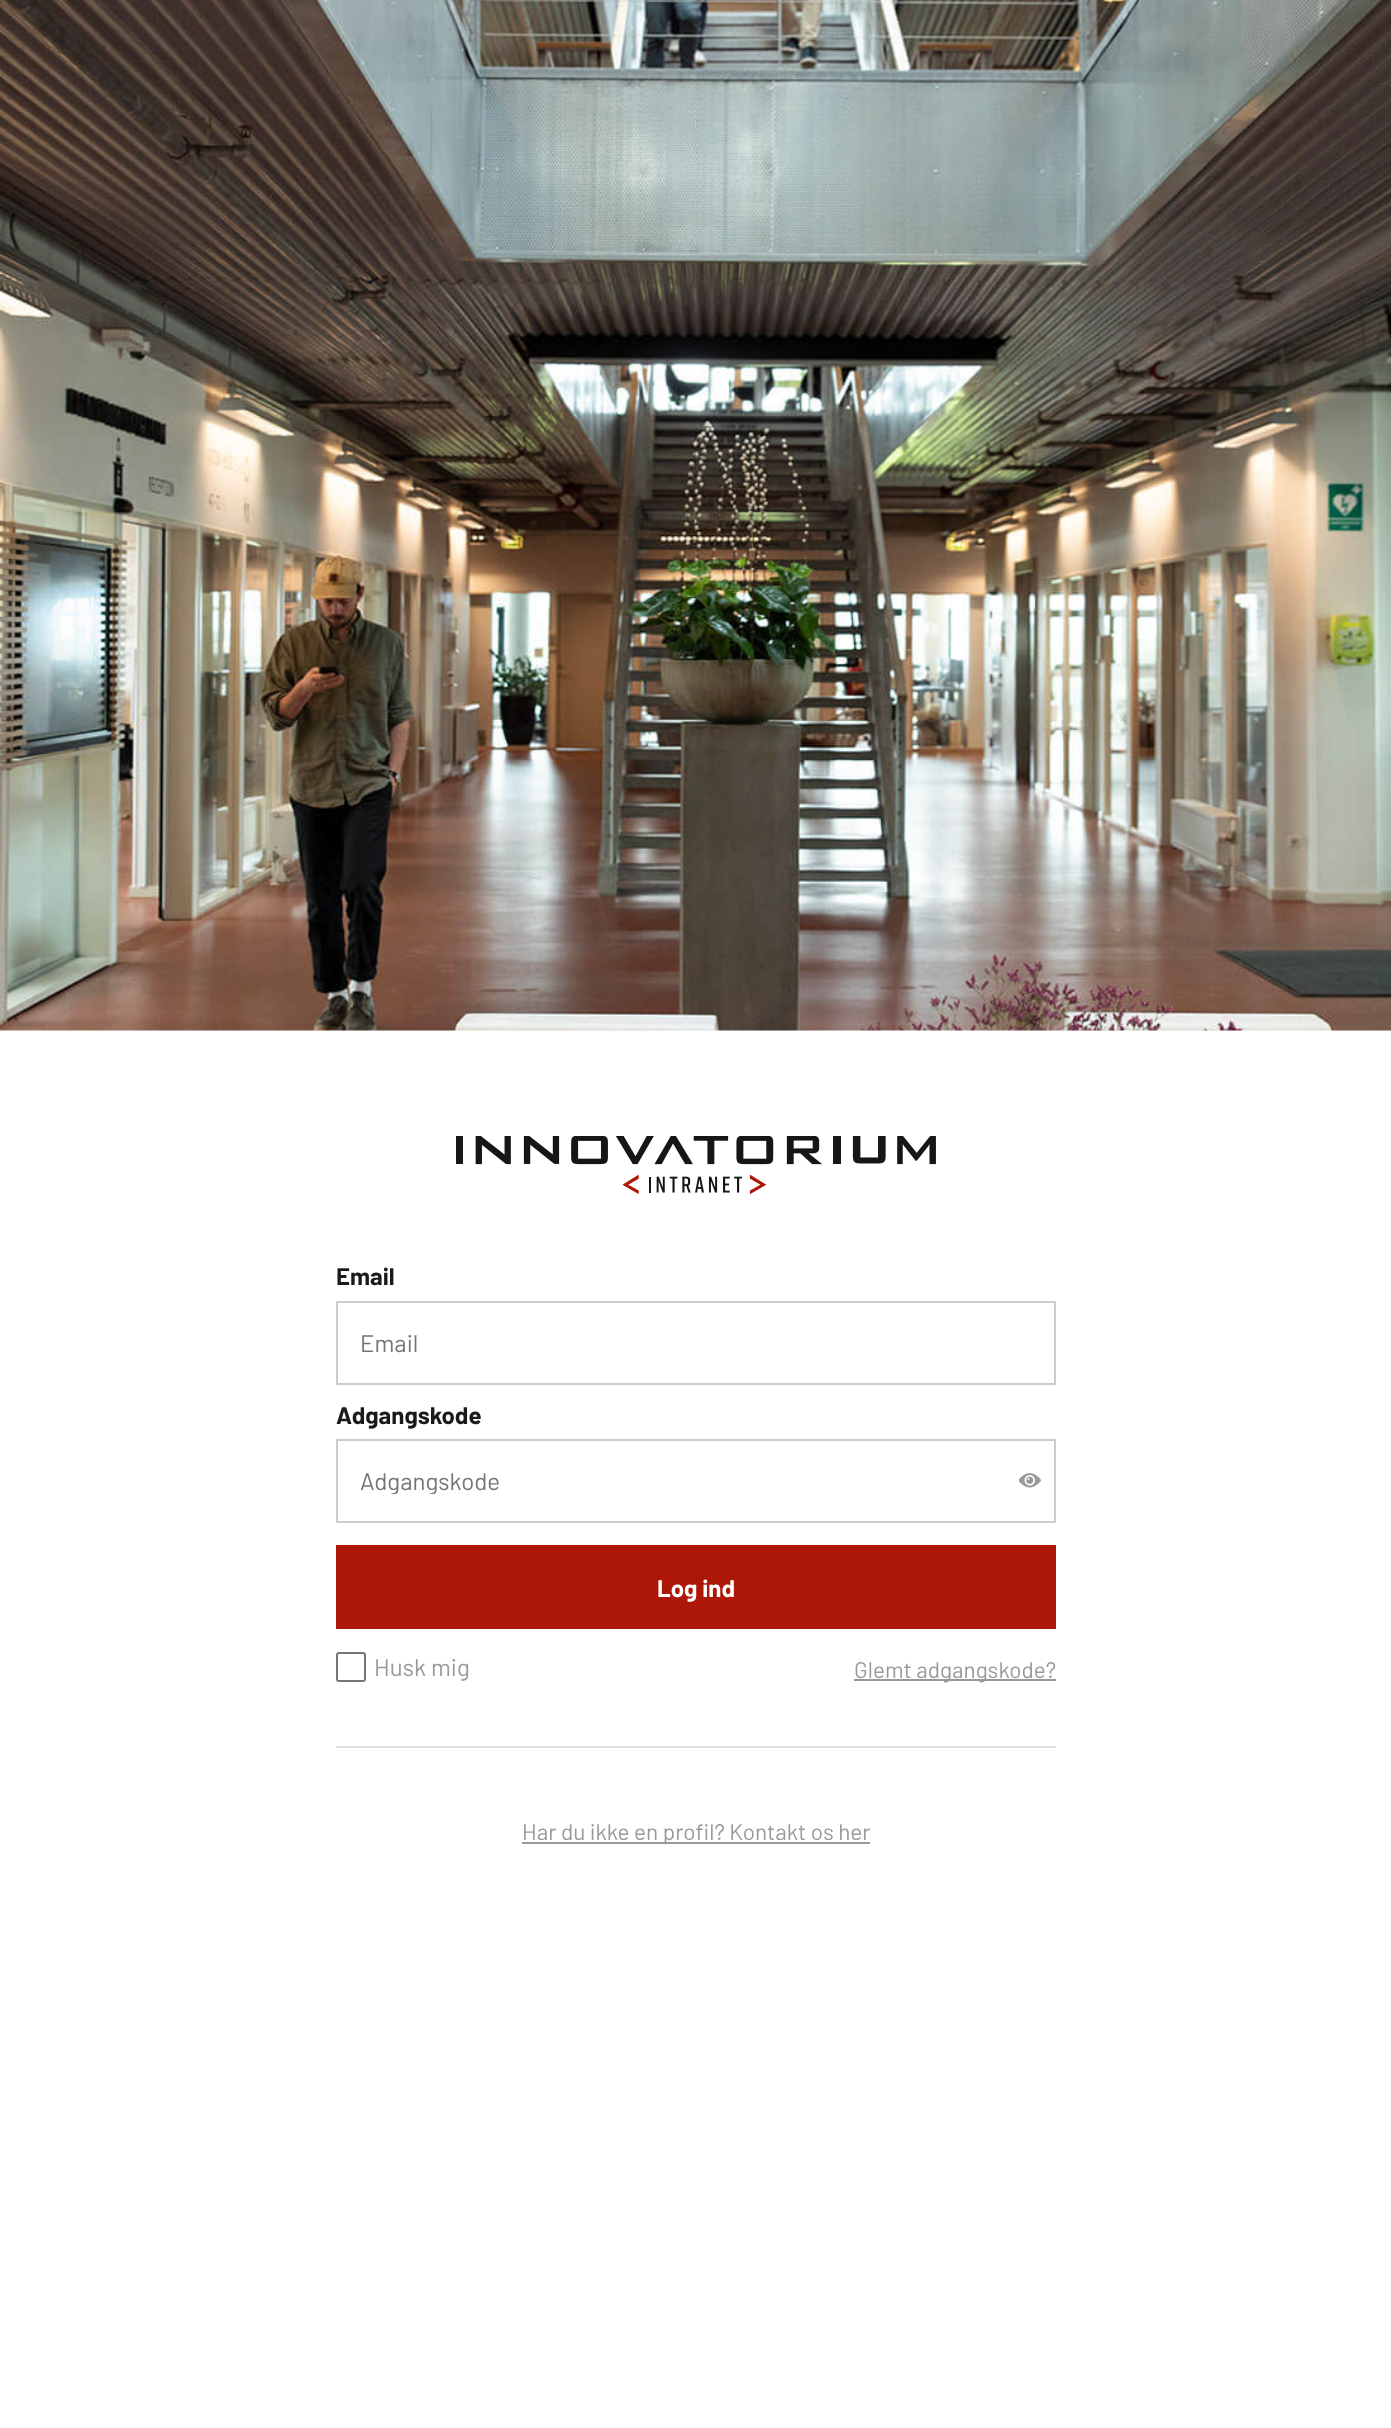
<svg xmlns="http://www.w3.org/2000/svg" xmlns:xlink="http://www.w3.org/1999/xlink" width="1391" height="2428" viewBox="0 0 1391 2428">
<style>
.cls-1{font:bold 24px Barlow;fill:#1a1a1a}
.cls-2{font:24px Barlow;fill:#757575}
.cls-3{font:bold 24px Barlow;fill:#ffffff}
.cls-4{font:24px Barlow;fill:#999999}
.cls-5{font:22.5px Barlow;fill:#999999}
</style>
<defs>
<clipPath id="clip1"><rect x="360" y="1466" width="672" height="28"/></clipPath>
</defs>
<rect width="100%" height="100%" fill="#ffffff"/>
<image xlink:href="image0.png" x="0" y="0" width="1391" height="1031"/>
<image xlink:href="image1.png" x="456" y="1136" width="480" height="58"/>
<rect fill="none" stroke="#cccccc" stroke-width="2" x="337" y="1302" width="718" height="82"/>
<rect fill="none" stroke="#cccccc" stroke-width="2" x="337" y="1440" width="718" height="82"/>
<image xlink:href="image2.png" x="1019" y="1473" width="22" height="15"/>
<rect fill="#ad1707" x="336" y="1545" width="720" height="84"/>
<rect fill="none" stroke="#767676" stroke-width="2" x="337" y="1653" width="28" height="28" rx="2"/>
<rect fill="#999999" x="854" y="1679" width="202" height="2"/>
<rect fill="#e0e0e0" x="336" y="1746" width="720" height="2"/>
<rect fill="#999999" x="522" y="1842" width="348" height="2"/>
<text class="cls-1" x="336" y="1285">Email</text>
<text class="cls-2" x="360" y="1352">Email</text>
<text class="cls-1" x="336" y="1424">Adgangskode</text>
<g clip-path="url(#clip1)">
<text class="cls-2" x="360" y="1490">Adgangskode</text>
</g>
<text class="cls-3" x="657" y="1597">Log ind</text>
<text class="cls-4" x="374" y="1676">Husk mig</text>
<text class="cls-5" x="854" y="1678">Glemt adgangskode?</text>
<text class="cls-5" x="522" y="1840">Har du ikke en profil? Kontakt os her</text>
</svg>
